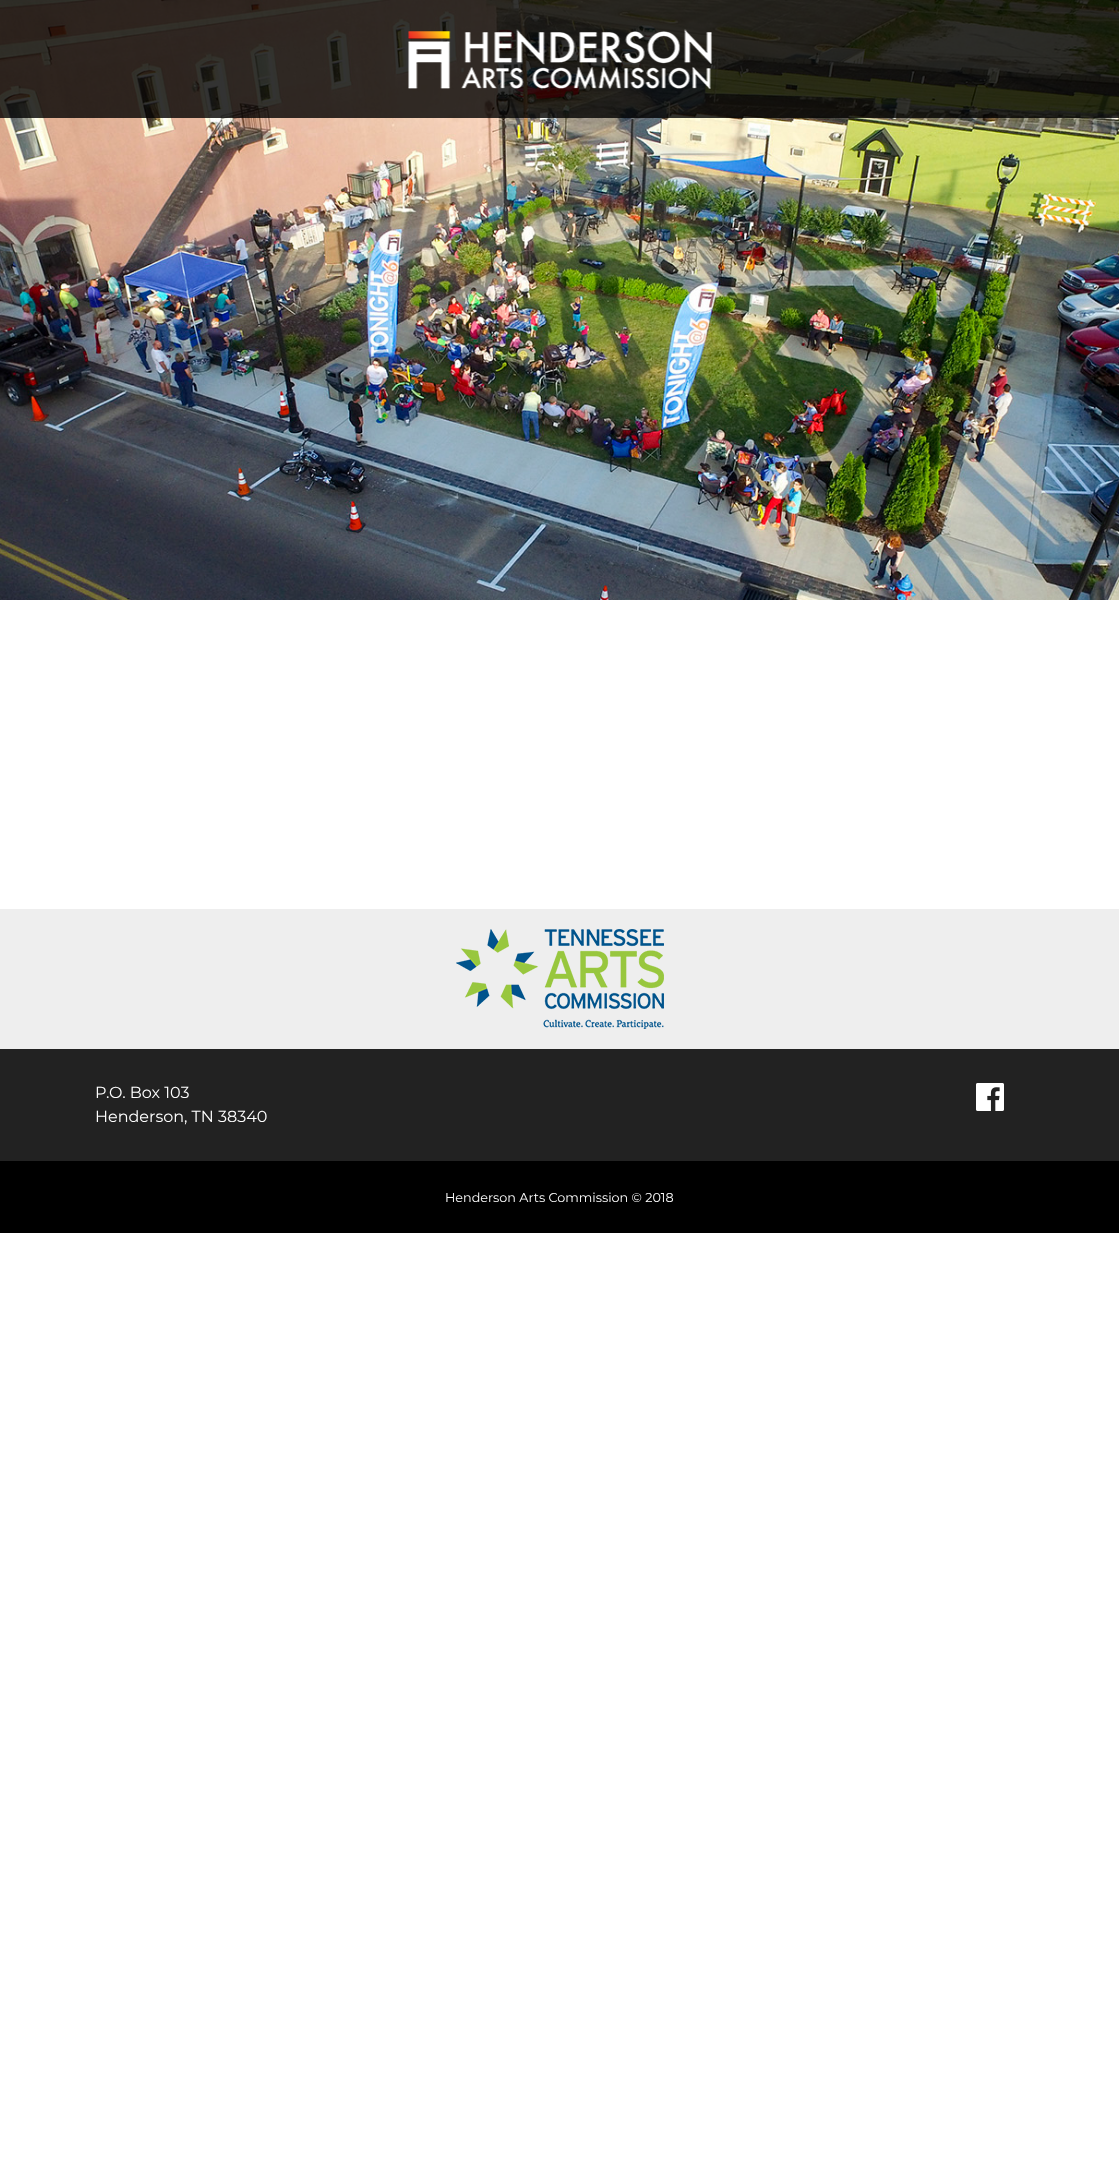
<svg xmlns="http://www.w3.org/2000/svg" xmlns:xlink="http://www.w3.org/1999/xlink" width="1119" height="2166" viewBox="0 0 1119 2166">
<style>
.cls-1{font:16px Montserrat;fill:#ffffff}
.cls-2{font:12.75px Montserrat;fill:#ffffff}
</style>
<rect width="100%" height="100%" fill="#ffffff"/>
<image xlink:href="image0.png" x="0" y="0" width="1119" height="600"/>
<rect fill="#000000" fill-opacity="0.8" x="0" y="0" width="1119" height="118"/>
<image xlink:href="image1.png" x="408" y="29" width="304" height="60"/>
<rect fill="#eeeeee" x="0" y="909" width="1119" height="140"/>
<image xlink:href="image2.png" x="456" y="929" width="208" height="100"/>
<rect fill="#222222" x="0" y="1049" width="1119" height="112"/>
<image xlink:href="image3.png" x="976" y="1083" width="28" height="28"/>
<rect fill="#000000" x="0" y="1161" width="1119" height="72"/>
<text class="cls-1"><tspan x="95" y="1098">P.O. Box 103</tspan><tspan x="95" y="1122">Henderson, TN 38340</tspan></text>
<text class="cls-2" x="445" y="1202">Henderson Arts Commission © 2018</text>
</svg>
